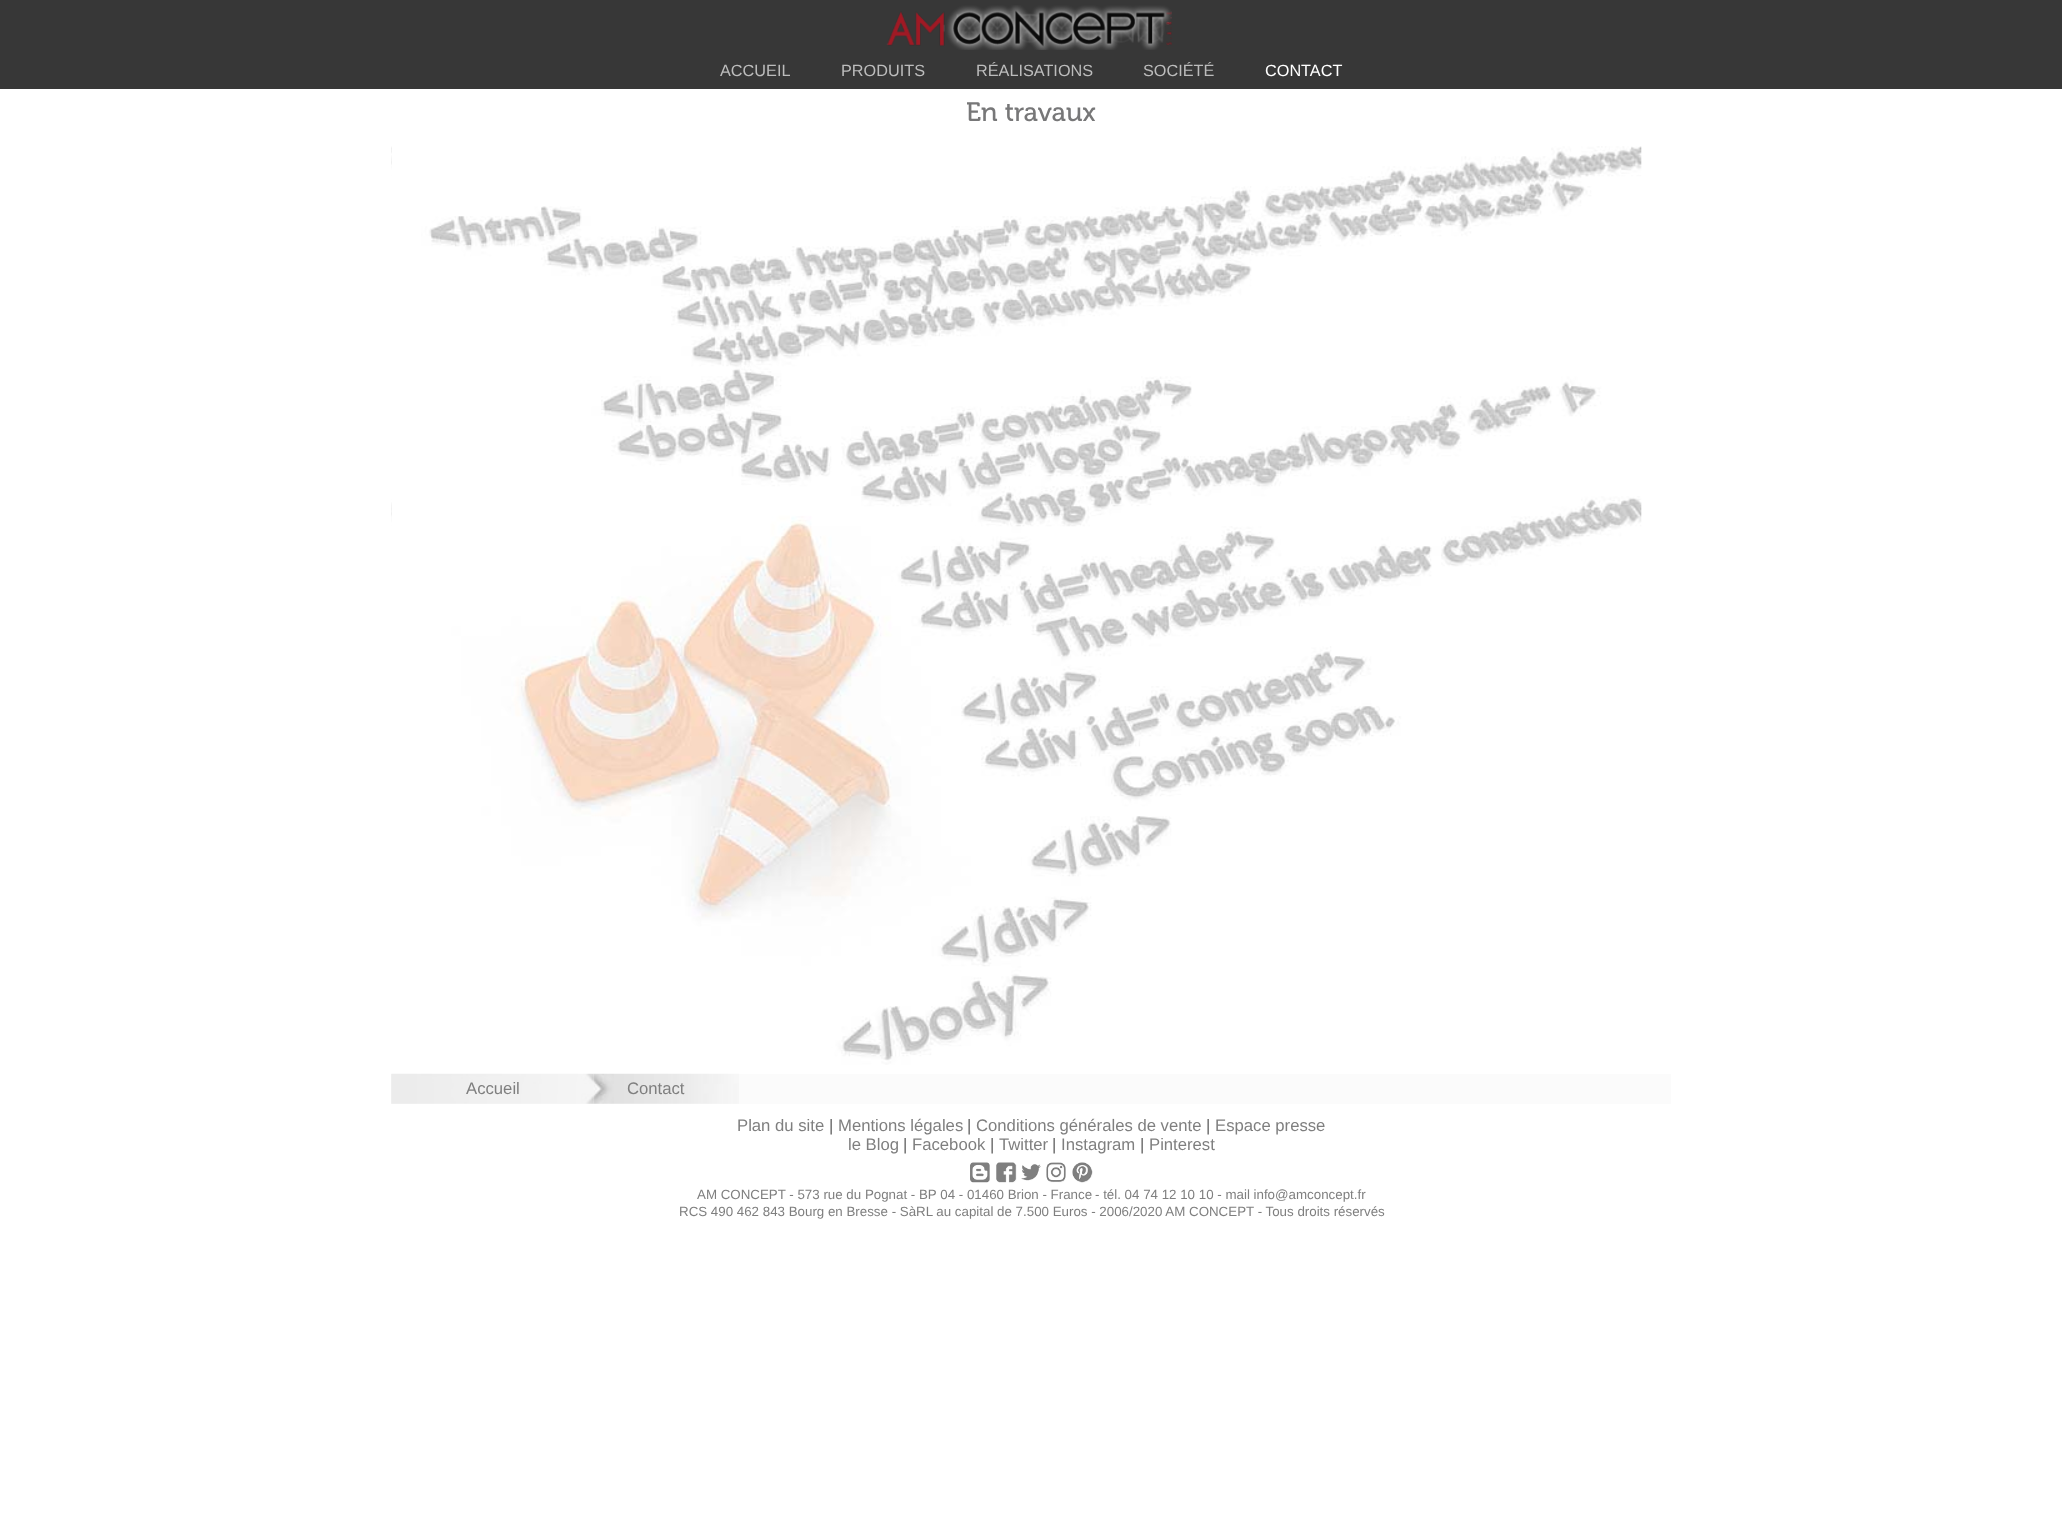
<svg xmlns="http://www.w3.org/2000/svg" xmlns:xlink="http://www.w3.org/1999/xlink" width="2062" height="1530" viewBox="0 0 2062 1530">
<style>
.cls-1{font:16.25px Liberation Sans;fill:#bcbcbc}
.cls-2{font:16.25px Liberation Sans;fill:#ffffff}
.cls-3{font:26.5px 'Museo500';fill:#777778}
.cls-4{font:16.7px Liberation Sans;fill:#7f7f7f}
.cls-5{font:16.7px Liberation Sans;fill:#666666}
.cls-6{font:13.33px Liberation Sans;fill:#7f7f7f}
</style>
<rect width="100%" height="100%" fill="#ffffff"/>
<rect fill="#373737" x="0" y="0" width="2062" height="89"/>
<image xlink:href="image0.png" x="886" y="5" width="286" height="45"/>
<image xlink:href="image1.png" x="391" y="146" width="1251" height="919"/>
<rect fill="#fbfbfb" x="391" y="1074" width="1280" height="30"/>
<image xlink:href="image2.png" x="391" y="1073" width="203" height="31"/>
<image xlink:href="image3.png" x="593" y="1073" width="146" height="31"/>
<image xlink:href="image4.png" x="970" y="1162" width="20" height="21"/>
<image xlink:href="image5.png" x="996" y="1162" width="21" height="21"/>
<image xlink:href="image6.png" x="1021" y="1164" width="20" height="17"/>
<image xlink:href="image7.png" x="1046" y="1162" width="20" height="21"/>
<image xlink:href="image8.png" x="1072" y="1162" width="21" height="21"/>
<text class="cls-1" x="720" y="76">ACCUEIL</text>
<text class="cls-1" x="841" y="76">PRODUITS</text>
<text class="cls-1" x="976" y="76">RÉALISATIONS</text>
<text class="cls-1" x="1143" y="76">SOCIÉTÉ</text>
<text class="cls-2" x="1265" y="76">CONTACT</text>
<text class="cls-3" x="966" y="121">En travaux</text>
<text class="cls-4" x="466" y="1094">Accueil</text>
<text class="cls-4" x="627" y="1094">Contact</text>
<text class="cls-4" x="737" y="1131">Plan du site</text>
<text class="cls-5" x="829" y="1131">|</text>
<text class="cls-4" x="838" y="1131">Mentions légales</text>
<text class="cls-5" x="967" y="1131">|</text>
<text class="cls-4" x="976" y="1131">Conditions générales de vente</text>
<text class="cls-5" x="1206" y="1131">|</text>
<text class="cls-4" x="1215" y="1131">Espace presse</text>
<text class="cls-4" x="848" y="1150">le Blog</text>
<text class="cls-5" x="903" y="1150">|</text>
<text class="cls-4" x="912" y="1150">Facebook</text>
<text class="cls-5" x="990" y="1150">|</text>
<text class="cls-4" x="999" y="1150">Twitter</text>
<text class="cls-5" x="1052" y="1150">|</text>
<text class="cls-4" x="1061" y="1150">Instagram</text>
<text class="cls-5" x="1140" y="1150">|</text>
<text class="cls-4" x="1149" y="1150">Pinterest</text>
<text class="cls-6" x="697" y="1199">AM CONCEPT - 573 rue du Pognat - BP 04 - 01460 Brion - France</text>
<text class="cls-6" x="1095" y="1199">- tél. 04 74 12 10 10 - mail info@amconcept.fr</text>
<text class="cls-6" x="679" y="1216">RCS 490 462 843 Bourg en Bresse - SàRL au capital de 7.500 Euros - 2006/2020 AM CONCEPT - Tous droits réservés</text>
</svg>
